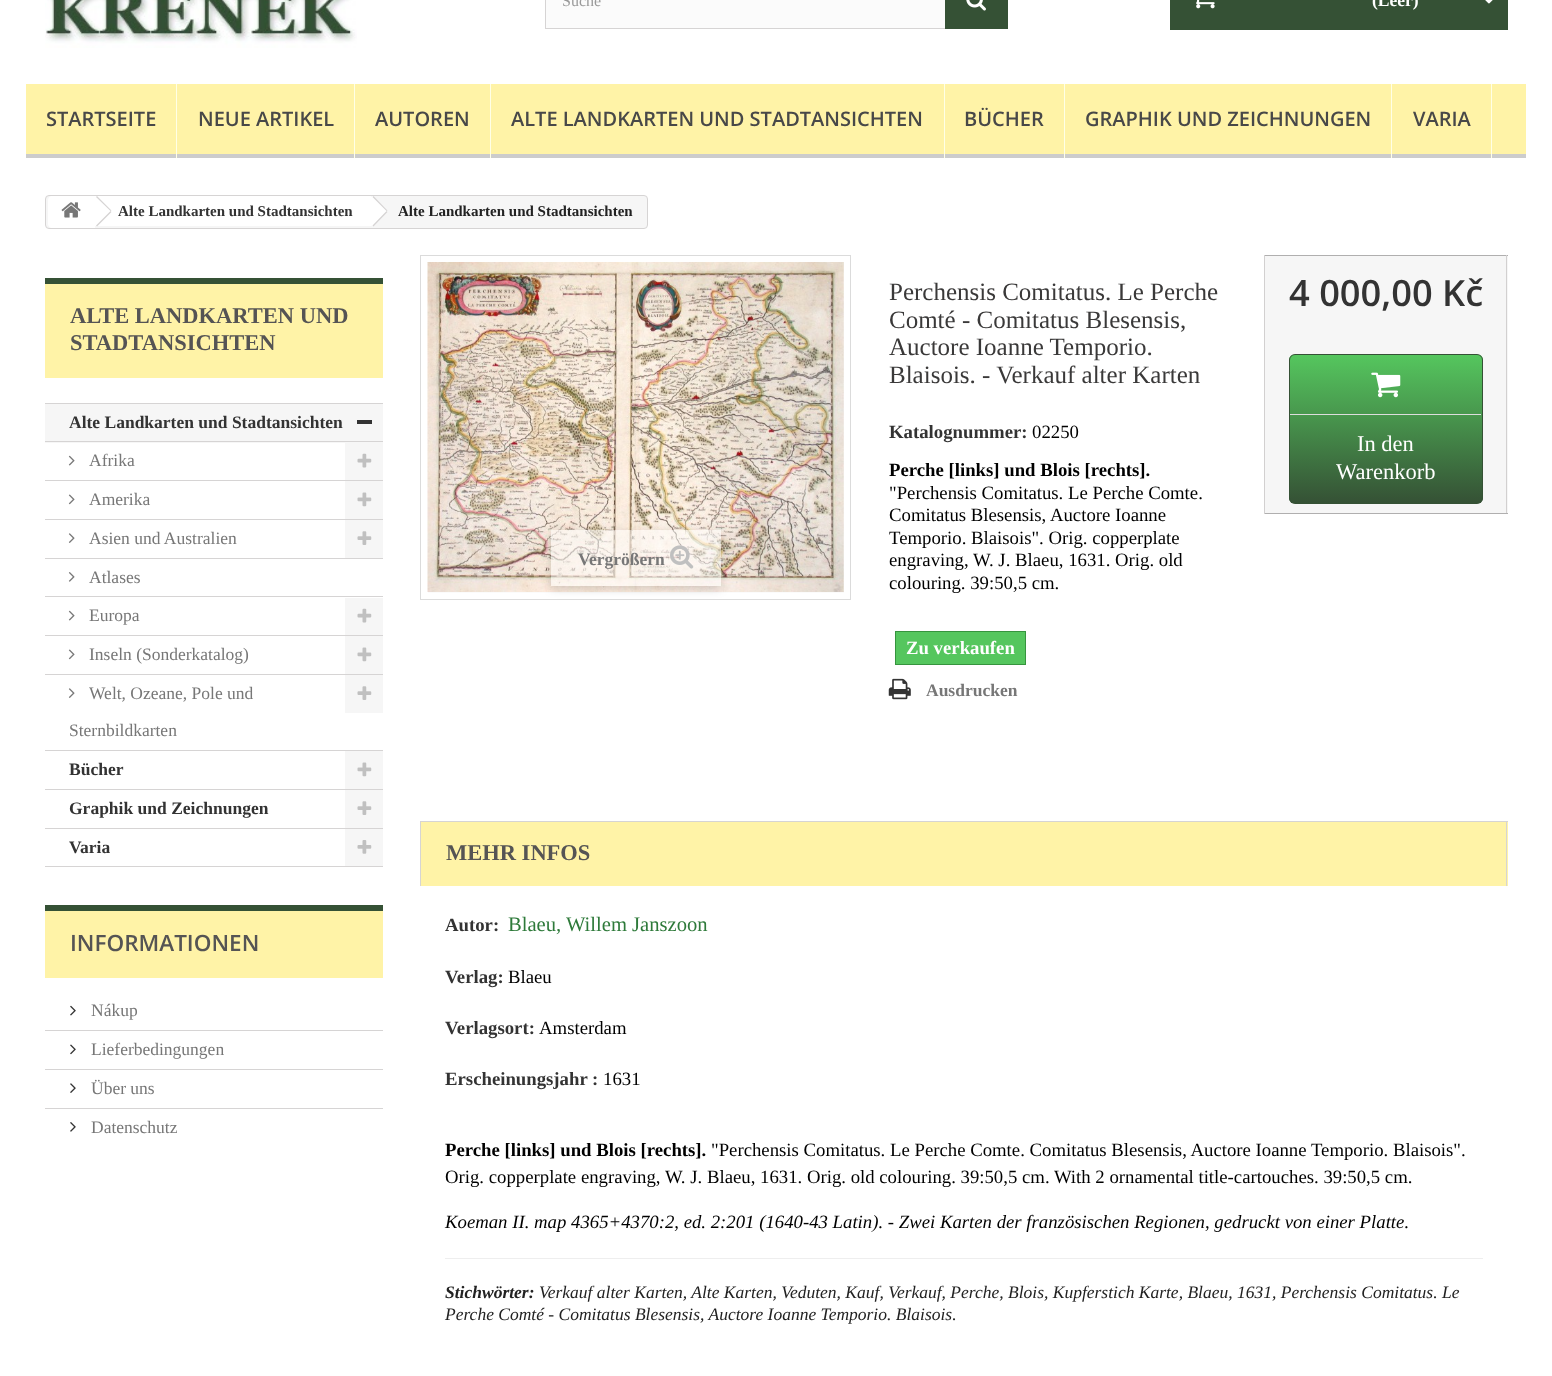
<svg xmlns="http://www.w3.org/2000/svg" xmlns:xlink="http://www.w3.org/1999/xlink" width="1552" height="1376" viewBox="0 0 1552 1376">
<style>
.cls-1{font:16px Liberation Serif;fill:#999999}
.cls-2{font:bold 17.5px Liberation Serif;fill:#ffffff}
.cls-3{font:600 20px Open Sans;fill:#484848}
.cls-4{font:bold 15px Liberation Serif;fill:#333333}
.cls-5{font:bold 15px Liberation Serif;fill:#222222}
.cls-6{font:bold 22.5px Liberation Serif;fill:#555454}
.cls-7{font:bold 17.5px Liberation Serif;fill:#333333}
.cls-8{font:17.5px Liberation Serif;fill:#777777}
.cls-9{font:600 22.5px Open Sans;fill:#555454}
.cls-10{font:bold 17.5px Liberation Serif;fill:#777777}
.cls-11{font:25px Liberation Serif;fill:#3a3939}
.cls-12{font:bold 18.75px Liberation Serif;fill:#333333}
.cls-13{font:18.75px Liberation Serif;fill:#000000}
.cls-14{font:bold 18.75px Liberation Serif;fill:#000000}
.cls-15{font:bold 18.75px Liberation Serif;fill:#ffffff}
.cls-16{font:600 36.25px Open Sans;fill:#333333}
.cls-17{font:22.5px Liberation Serif;fill:#ffffff}
.cls-18{font:20.6px Liberation Serif;fill:#2e7a3a}
.cls-19{font:italic 18.75px Liberation Serif;fill:#000000}
.cls-20{font:italic bold 17.5px Liberation Serif;fill:#222222}
.cls-21{font:italic 17.5px Liberation Serif;fill:#222222}
</style>
<defs>
<clipPath id="clip1"><path d="M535 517H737V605H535ZM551 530H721V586H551Z" clip-rule="evenodd"/></clipPath>
<clipPath id="clip2"><rect x="1289" y="354" width="194" height="150" rx="6"/></clipPath>
<linearGradient id="g1" gradientUnits="userSpaceOnUse" x1="1386" y1="355" x2="1386" y2="503"><stop offset="0" stop-color="#55c65e"/><stop offset="1" stop-color="#355135"/></linearGradient>
</defs>
<rect width="100%" height="100%" fill="#ffffff"/>
<image xlink:href="image0.png" x="45" y="0" width="312" height="48"/>
<rect fill="#fbfbfb" x="546" y="0" width="399" height="28"/>
<rect fill="none" stroke="#d6d4d4" x="545.5" y="-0.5" width="462" height="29"/>
<rect fill="#355135" x="945" y="0" width="63" height="29"/>
<image xlink:href="image1.png" x="966" y="0" width="20" height="11"/>
<rect fill="#355135" x="1170" y="0" width="338" height="30"/>
<image xlink:href="image2.png" x="1196" y="0" width="19" height="9"/>
<image xlink:href="image3.png" x="1485" y="0" width="8" height="4"/>
<rect fill="#fff3a7" x="26" y="84" width="1500" height="70"/>
<rect fill="#cccccc" x="26" y="154" width="1500" height="4"/>
<rect fill="#ffffe6" x="176" y="84" width="1" height="74"/>
<rect fill="#ffffe6" x="354" y="84" width="1" height="74"/>
<rect fill="#ffffe6" x="490" y="84" width="1" height="74"/>
<rect fill="#ffffe6" x="944" y="84" width="1" height="74"/>
<rect fill="#ffffe6" x="1064" y="84" width="1" height="74"/>
<rect fill="#ffffe6" x="1391" y="84" width="1" height="74"/>
<rect fill="#ffffe6" x="1491" y="84" width="1" height="74"/>
<rect fill="#f6f6f6" stroke="#d6d4d4" x="45.5" y="195.5" width="602" height="33" rx="3.5"/>
<path fill="#ffffff" d="M52 196H95V228H52C50 228 48 226 48 224V200C48 198 50 196 52 196Z"/>
<image xlink:href="image4.png" x="61" y="202" width="20" height="16"/>
<rect fill="#ffffff" x="95" y="196" width="276" height="30"/>
<path fill="#d6d4d4" d="M97 196L111.5 210.5L110.5 211L96 197ZM110.5 211L111.5 212L97 226.5L96 225.5Z"/>
<path fill="#ffffff" d="M374.5 197L386.5 209.5C387.5 210.5 387.5 212 386.5 213L374.5 225.5C373.5 226.5 372 226.5 371 225.5L358.5 213C357.5 212 357.5 210.5 358.5 209.5L371 197C372 196 373.5 196 374.5 197Z"/>
<path fill="#d6d4d4" d="M373.5 196L387.5 210.5L386.5 211L372.5 197ZM386.5 211L387.5 212L373.5 226.5L372.5 225.5Z"/>
<rect fill="#fff3a7" x="45" y="284" width="338" height="94"/>
<rect fill="#355135" x="45" y="278" width="338" height="6"/>
<rect fill="#d6d4d4" x="45" y="403" width="338" height="1"/>
<rect fill="#f6f6f6" x="45" y="404" width="338" height="39"/>
<rect fill="#d6d4d4" x="45" y="441" width="338" height="1"/>
<rect fill="#333333" x="357" y="420" width="15" height="4"/>
<rect fill="#d6d4d4" x="45" y="480" width="338" height="1"/>
<image xlink:href="image5.png" x="68" y="455" width="7" height="11"/>
<rect fill="#f6f6f6" x="345" y="443" width="38" height="37"/>
<image xlink:href="image6.png" x="357" y="453" width="15" height="15"/>
<rect fill="#d6d4d4" x="45" y="519" width="338" height="1"/>
<image xlink:href="image7.png" x="68" y="494" width="7" height="11"/>
<rect fill="#f6f6f6" x="345" y="481" width="38" height="38"/>
<image xlink:href="image8.png" x="357" y="492" width="15" height="15"/>
<rect fill="#d6d4d4" x="45" y="558" width="338" height="1"/>
<image xlink:href="image9.png" x="68" y="533" width="7" height="10"/>
<rect fill="#f6f6f6" x="345" y="520" width="38" height="38"/>
<image xlink:href="image10.png" x="357" y="531" width="15" height="14"/>
<rect fill="#d6d4d4" x="45" y="596" width="338" height="1"/>
<image xlink:href="image11.png" x="68" y="572" width="7" height="10"/>
<rect fill="#d6d4d4" x="45" y="635" width="338" height="1"/>
<image xlink:href="image5.png" x="68" y="610" width="7" height="11"/>
<rect fill="#f6f6f6" x="345" y="598" width="38" height="37"/>
<image xlink:href="image6.png" x="357" y="608" width="15" height="15"/>
<rect fill="#d6d4d4" x="45" y="674" width="338" height="1"/>
<image xlink:href="image7.png" x="68" y="649" width="7" height="11"/>
<rect fill="#f6f6f6" x="345" y="636" width="38" height="38"/>
<image xlink:href="image8.png" x="357" y="647" width="15" height="15"/>
<rect fill="#d6d4d4" x="45" y="750" width="338" height="1"/>
<image xlink:href="image9.png" x="68" y="688" width="7" height="10"/>
<rect fill="#f6f6f6" x="345" y="675" width="38" height="38"/>
<image xlink:href="image10.png" x="357" y="686" width="15" height="14"/>
<rect fill="#d6d4d4" x="45" y="789" width="338" height="1"/>
<rect fill="#f6f6f6" x="345" y="751" width="38" height="38"/>
<image xlink:href="image8.png" x="357" y="762" width="15" height="15"/>
<rect fill="#d6d4d4" x="45" y="828" width="338" height="1"/>
<rect fill="#f6f6f6" x="345" y="790" width="38" height="38"/>
<image xlink:href="image10.png" x="357" y="801" width="15" height="14"/>
<rect fill="#d6d4d4" x="45" y="866" width="338" height="1"/>
<rect fill="#f6f6f6" x="345" y="829" width="38" height="37"/>
<image xlink:href="image12.png" x="357" y="840" width="15" height="14"/>
<rect fill="#fff3a7" x="45" y="911" width="338" height="67"/>
<rect fill="#355135" x="45" y="905" width="338" height="6"/>
<image xlink:href="image13.png" x="70" y="1005" width="6" height="11"/>
<rect fill="#d6d4d4" x="45" y="1030" width="338" height="1"/>
<image xlink:href="image14.png" x="70" y="1044" width="6" height="11"/>
<rect fill="#d6d4d4" x="45" y="1069" width="338" height="1"/>
<image xlink:href="image15.png" x="70" y="1083" width="6" height="10"/>
<rect fill="#d6d4d4" x="45" y="1108" width="338" height="1"/>
<image xlink:href="image16.png" x="70" y="1122" width="6" height="10"/>
<rect fill="none" stroke="#dbdbdb" x="420.5" y="255.5" width="430" height="344"/>
<rect fill="#fbfbfb" x="428" y="263" width="416" height="330"/>
<image xlink:href="image17.png" x="427" y="262" width="417" height="330"/>
<g clip-path="url(#clip1)">
<rect fill="#000000" fill-opacity="0.16" filter="blur(5px)" x="551" y="533" width="170" height="56"/>
</g>
<rect fill="#ffffff" fill-opacity="0.5" x="551" y="530" width="170" height="56"/>
<image xlink:href="image18.png" x="670" y="545" width="24" height="24"/>
<rect fill="#55c65e" stroke="#36943e" x="895.5" y="631.5" width="130" height="33"/>
<image xlink:href="image19.png" x="888" y="678" width="23" height="22"/>
<rect fill="#f6f6f6" x="1265" y="256" width="243" height="257"/>
<rect fill="#b0afaf" x="1264" y="255" width="244" height="1"/>
<rect fill="#d2d0d0" x="1506" y="255" width="1" height="259"/>
<rect fill="#b0afaf" x="1264" y="513" width="244" height="1"/>
<rect fill="#d2d0d0" x="1264" y="255" width="1" height="259"/>
<g clip-path="url(#clip2)">
<rect fill="url(#g1)" x="1289" y="355" width="194" height="148"/>
</g>
<rect fill="none" stroke="#355135" x="1289.5" y="354.5" width="193" height="149" rx="5.5"/>
<image xlink:href="image20.png" x="1371" y="372" width="30" height="26"/>
<rect fill="#dddddd" x="1290" y="414" width="191" height="1"/>
<rect fill="#fff3a7" x="421" y="822" width="1087" height="64"/>
<rect fill="#d6d4d4" x="420" y="821" width="1088" height="1"/>
<rect fill="#d6d4d4" x="1506" y="821" width="1" height="65"/>
<rect fill="#d6d4d4" x="420" y="821" width="1" height="65"/>
<rect fill="#eeeeee" x="445" y="1258" width="1038" height="1"/>
<text class="cls-1" x="562" y="6">Suche</text>
<text class="cls-2" x="1372" y="6">(Leer)</text>
<text class="cls-3" x="46" y="126">STARTSEITE</text>
<text class="cls-3" x="198" y="126">NEUE ARTIKEL</text>
<text class="cls-3" x="375" y="126">AUTOREN</text>
<text class="cls-3" x="511" y="126">ALTE LANDKARTEN UND STADTANSICHTEN</text>
<text class="cls-3" x="964" y="126">BÜCHER</text>
<text class="cls-3" x="1085" y="126">GRAPHIK UND ZEICHNUNGEN</text>
<text class="cls-3" x="1413" y="126">VARIA</text>
<text class="cls-4" x="118" y="216">Alte Landkarten und Stadtansichten</text>
<text class="cls-5" x="398" y="216">Alte Landkarten und Stadtansichten</text>
<text class="cls-6"><tspan x="70" y="323">ALTE LANDKARTEN UND</tspan><tspan x="70" y="350">STADTANSICHTEN</tspan></text>
<text class="cls-7" x="69" y="428">Alte Landkarten und Stadtansichten</text>
<text class="cls-8" x="89" y="466">Afrika</text>
<text class="cls-8" x="89" y="505">Amerika</text>
<text class="cls-8" x="89" y="544">Asien und Australien</text>
<text class="cls-8" x="89" y="583">Atlases</text>
<text class="cls-8" x="89" y="621">Europa</text>
<text class="cls-8" x="89" y="660">Inseln (Sonderkatalog)</text>
<text class="cls-8" x="89" y="699">Welt, Ozeane, Pole und</text>
<text class="cls-8" x="69" y="736">Sternbildkarten</text>
<text class="cls-7" x="69" y="775">Bücher</text>
<text class="cls-7" x="69" y="814">Graphik und Zeichnungen</text>
<text class="cls-7" x="69" y="853">Varia</text>
<text class="cls-9" x="70" y="951">INFORMATIONEN</text>
<text class="cls-8" x="91" y="1016">Nákup</text>
<text class="cls-8" x="91" y="1055">Lieferbedingungen</text>
<text class="cls-8" x="91" y="1094">Über uns</text>
<text class="cls-8" x="91" y="1133">Datenschutz</text>
<text class="cls-10" x="578" y="565">Vergrößern</text>
<text class="cls-11"><tspan x="889" y="300">Perchensis Comitatus. Le Perche</tspan><tspan x="889" y="328">Comté - Comitatus Blesensis,</tspan><tspan x="889" y="355">Auctore Ioanne Temporio.</tspan><tspan x="889" y="383">Blaisois. - Verkauf alter Karten</tspan></text>
<text class="cls-12" x="889" y="438">Katalognummer:</text>
<text class="cls-13" x="1032" y="438">02250</text>
<text class="cls-14" x="889" y="476">Perche [links] und Blois [rechts].</text>
<text class="cls-13"><tspan x="889" y="499">"Perchensis Comitatus. Le Perche Comte.</tspan><tspan x="889" y="521">Comitatus Blesensis, Auctore Ioanne</tspan><tspan x="889" y="544">Temporio. Blaisois". Orig. copperplate</tspan><tspan x="889" y="566">engraving, W. J. Blaeu, 1631. Orig. old</tspan><tspan x="889" y="589">colouring. 39:50,5 cm.</tspan></text>
<text class="cls-15" x="906" y="654">Zu verkaufen</text>
<text class="cls-10" x="926" y="696">Ausdrucken</text>
<text class="cls-16" x="1289" y="306">4 000,00 Kč</text>
<text class="cls-17" x="1357" y="451">In den</text>
<text class="cls-17" x="1336" y="479">Warenkorb</text>
<text class="cls-6" x="446" y="860">MEHR INFOS</text>
<text class="cls-12" x="445" y="931">Autor:</text>
<text class="cls-18" x="508" y="931">Blaeu, Willem Janszoon</text>
<text class="cls-12" x="445" y="983">Verlag:</text>
<text class="cls-13" x="508" y="983">Blaeu</text>
<text class="cls-12" x="445" y="1034">Verlagsort:</text>
<text class="cls-13" x="539" y="1034">Amsterdam</text>
<text class="cls-12" x="445" y="1085">Erscheinungsjahr :</text>
<text class="cls-13" x="603" y="1085">1631</text>
<text class="cls-14" x="445" y="1156">Perche [links] und Blois [rechts].</text>
<text class="cls-13" x="711" y="1156">"Perchensis Comitatus. Le Perche Comte. Comitatus Blesensis, Auctore Ioanne Temporio. Blaisois".</text>
<text class="cls-13" x="445" y="1183">Orig. copperplate engraving, W. J. Blaeu, 1631. Orig. old colouring. 39:50,5 cm. With 2 ornamental title-cartouches. 39:50,5 cm.</text>
<text class="cls-19" x="445" y="1228">Koeman II. map 4365+4370:2, ed. 2:201 (1640-43 Latin). - Zwei Karten der französischen Regionen, gedruckt von einer Platte.</text>
<text class="cls-20" x="445" y="1298">Stichwörter:</text>
<text class="cls-21" x="539" y="1298">Verkauf alter Karten, Alte Karten, Veduten, Kauf, Verkauf, Perche, Blois, Kupferstich Karte, Blaeu, 1631, Perchensis Comitatus. Le</text>
<text class="cls-21" x="445" y="1320">Perche Comté - Comitatus Blesensis, Auctore Ioanne Temporio. Blaisois.</text>
</svg>
